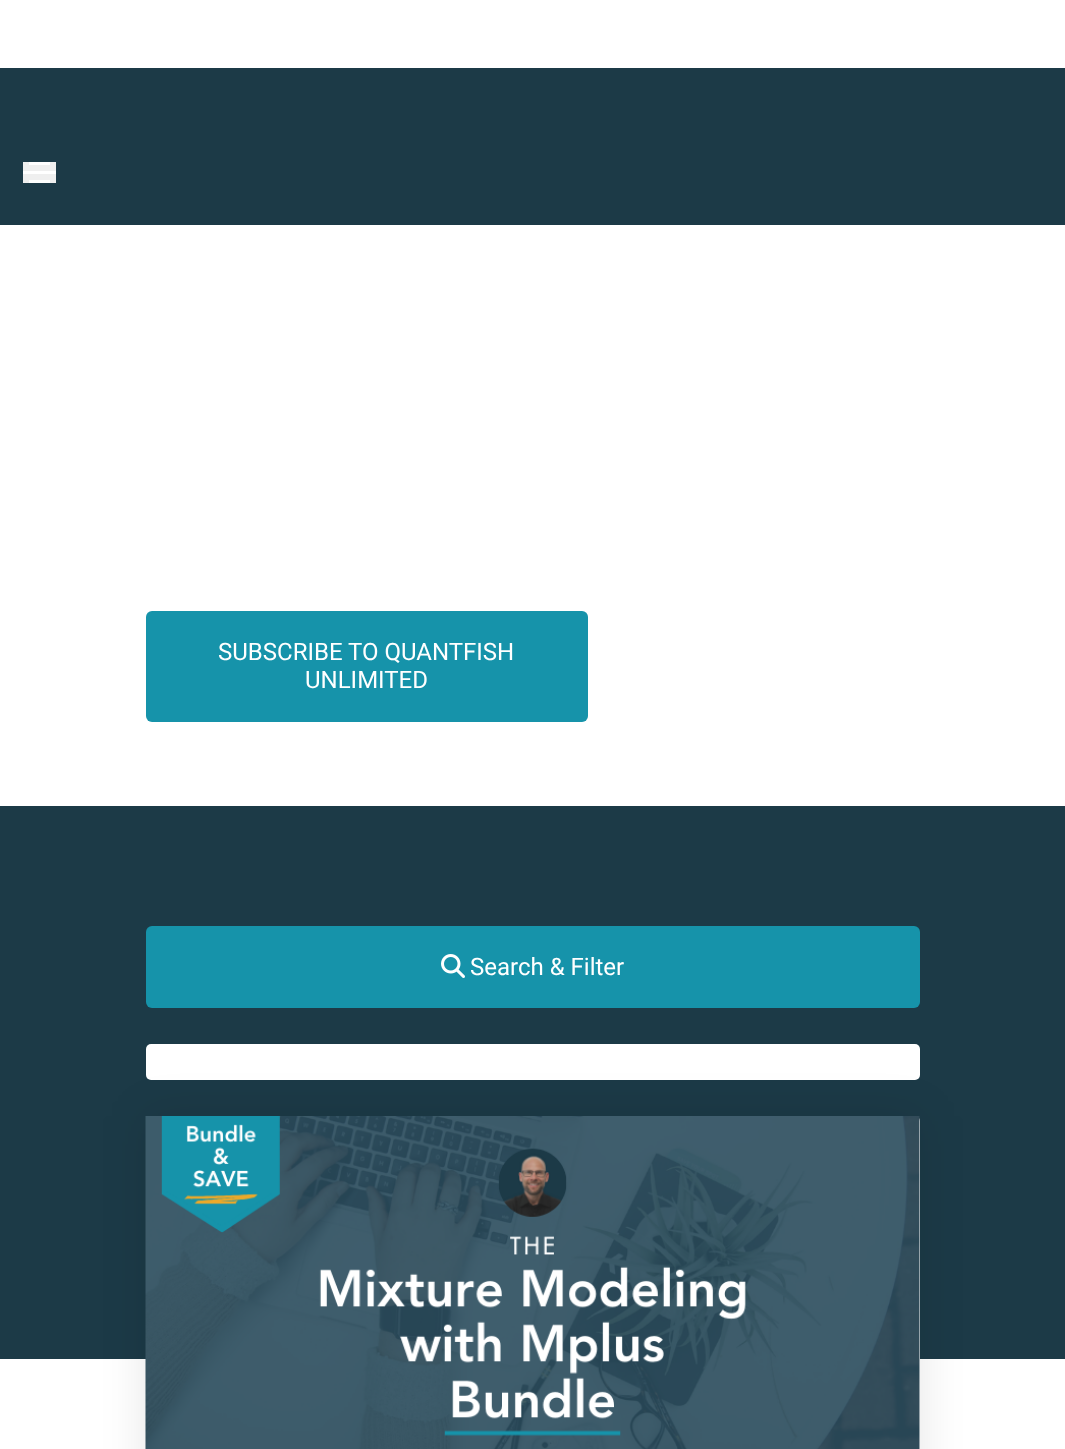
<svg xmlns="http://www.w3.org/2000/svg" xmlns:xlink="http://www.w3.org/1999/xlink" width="1065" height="1449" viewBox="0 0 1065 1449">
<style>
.cls-1{font:24px Roboto;fill:#ffffff}
</style>
<rect width="100%" height="100%" fill="#ffffff"/>
<rect fill="#1c3a47" x="0" y="68" width="1065" height="157"/>
<rect fill="#efefef" x="23" y="162" width="33" height="21"/>
<rect fill="#ffffff" x="29" y="162" width="21" height="3"/>
<rect fill="#ffffff" x="23" y="171" width="33" height="3"/>
<rect fill="#ffffff" x="29" y="180" width="21" height="3"/>
<rect fill="#1693aa" x="146" y="611" width="442" height="111" rx="6"/>
<rect fill="#1c3a47" x="0" y="806" width="1065" height="553"/>
<rect fill="#1693aa" x="146" y="926" width="774" height="82" rx="6"/>
<image xlink:href="image0.png" x="441" y="954" width="24" height="24"/>
<rect fill="#ffffff" x="146" y="1044" width="774" height="36" rx="5"/>
<rect fill="#000000" fill-opacity="0.1" filter="blur(22.5px)" x="146" y="1116" width="774" height="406" rx="5"/>
<rect fill="#ffffff" x="146" y="1116" width="774" height="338" rx="5"/>
<image xlink:href="image1.png" x="145" y="1116" width="775" height="333"/>
<text class="cls-1" x="218" y="660">SUBSCRIBE TO QUANTFISH</text>
<text class="cls-1" x="305" y="688">UNLIMITED</text>
<text class="cls-1" x="470" y="975">Search &amp; Filter</text>
</svg>
